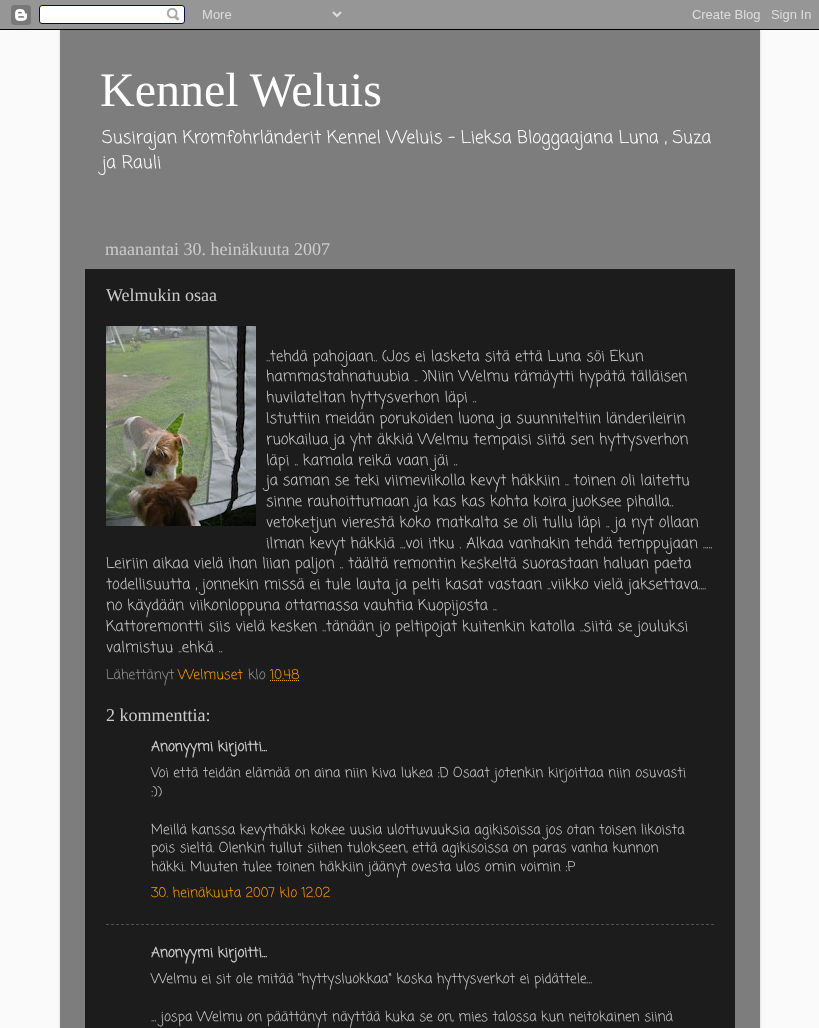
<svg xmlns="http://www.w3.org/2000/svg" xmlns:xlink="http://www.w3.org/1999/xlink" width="819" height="1028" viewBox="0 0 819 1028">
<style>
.cls-1{font:48px Liberation Serif;fill:#ffffff}
.cls-2{font:17.55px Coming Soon;fill:#ffffff}
.cls-3{font:18px Liberation Serif;fill:#cccccc}
.cls-4{font:14.85px Coming Soon;fill:#cccccc}
.cls-5{font:13.5px Coming Soon;fill:#999999}
.cls-6{font:13.5px Coming Soon;fill:#ff9900}
.cls-7{font:bold 13.5px Coming Soon;fill:#cccccc}
.cls-8{font:13.5px Coming Soon;fill:#cccccc}
</style>
<rect width="100%" height="100%" fill="#fafafa"/>
<rect fill="#000000" fill-opacity="0.15" filter="blur(1.5px)" x="60" y="30" width="700" height="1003"/>
<image xlink:href="image0.png" x="0" y="0" width="819" height="30"/>
<rect fill="#7d7d7d" x="60" y="30" width="700" height="998"/>
<rect fill="#1c1c1c" x="85" y="269" width="650" height="759"/>
<image xlink:href="image1.png" x="106" y="326" width="150" height="200"/>
<path fill="none" stroke="#ff9900" stroke-dasharray="1 1" d="M270 680.5H299"/>
<path fill="none" stroke="#4e4e4e" stroke-dasharray="3 2" d="M106 924.5H714"/>
<text class="cls-1" x="100" y="106">Kennel Weluis</text>
<text class="cls-2"><tspan x="102" y="143">Susirajan Kromfohrländerit Kennel Weluis - Lieksa Bloggaajana Luna , Suza</tspan><tspan x="102" y="168">ja Rauli</tspan></text>
<text class="cls-3" x="105" y="255">maanantai 30. heinäkuuta 2007</text>
<text class="cls-3" x="106" y="301">Welmukin osaa</text>
<text class="cls-4"><tspan x="266" y="361">..tehdä pahojaan.. (Jos ei lasketa sitä että Luna söi Ekun</tspan><tspan x="266" y="381">hammastahnatuubia .. )Niin Welmu rämäytti hypätä tälläisen</tspan><tspan x="266" y="402">huvilateltan hyttysverhon läpi ..</tspan><tspan x="266" y="423">Istuttiin meidän porukoiden luona ja suunniteltiin länderileirin</tspan><tspan x="266" y="444">ruokailua ja yht äkkiä Welmu tempaisi siitä sen hyttysverhon</tspan><tspan x="266" y="465">läpi .. kamala reikä vaan jäi ..</tspan><tspan x="266" y="485">ja saman se teki viimeviikolla kevyt häkkiin .. toinen oli laitettu</tspan><tspan x="266" y="506">sinne rauhoittumaan ,ja kas kas kohta koira juoksee pihalla..</tspan><tspan x="266" y="527">vetoketjun vierestä koko matkalta se oli tullu läpi .. ja nyt ollaan</tspan><tspan x="266" y="548">ilman kevyt häkkiä ...voi itku . Alkaa vanhakin tehdä temppujaan .....</tspan></text>
<text class="cls-4"><tspan x="106" y="568">Leiriin aikaa vielä ihan liian paljon .. täältä remontin keskeltä suorastaan haluan paeta</tspan><tspan x="106" y="589">todellisuutta , jonnekin missä ei tule lauta ja pelti kasat vastaan ..viikko vielä jaksettava....</tspan><tspan x="106" y="610">no käydään viikonloppuna ottamassa vauhtia Kuopijosta ..</tspan><tspan x="106" y="631">Kattoremontti siis vielä kesken ..tänään jo peltipojat kuitenkin katolla ..siitä se jouluksi</tspan><tspan x="106" y="652">valmistuu ..ehkä ..</tspan></text>
<text class="cls-5" x="106" y="679">Lähettänyt</text>
<text class="cls-6" x="178" y="679">Welmuset</text>
<text class="cls-5" x="248" y="679">klo</text>
<text class="cls-6" x="270" y="679">10.48</text>
<text class="cls-3" x="106" y="721">2 kommenttia:</text>
<text class="cls-7" x="151" y="751">Anonyymi kirjoitti...</text>
<text class="cls-8"><tspan x="151" y="777">Voi että teidän elämää on aina niin kiva lukea :D Osaat jotenkin kirjoittaa niin osuvasti</tspan><tspan x="151" y="796">:))</tspan></text>
<text class="cls-8"><tspan x="151" y="834">Meillä kanssa kevythäkki kokee uusia ulottuvuuksia agikisoissa jos otan toisen likoista</tspan><tspan x="151" y="852">pois sieltä. Olenkin tullut siihen tulokseen, että agikisoissa on paras vanha kunnon</tspan><tspan x="151" y="871">häkki. Muuten tulee toinen häkkiin jäänyt ovesta ulos omin voimin :P</tspan></text>
<text class="cls-6" x="151" y="897">30. heinäkuuta 2007 klo 12.02</text>
<text class="cls-7" x="151" y="957">Anonyymi kirjoitti...</text>
<text class="cls-8" x="151" y="983">Welmu ei sit ole mitää "hyttysluokkaa" koska hyttysverkot ei pidättele...</text>
<text class="cls-8" x="151" y="1021">... jospa Welmu on päättänyt näyttää kuka se on, mies talossa kun neitokainen siinä</text>
</svg>
